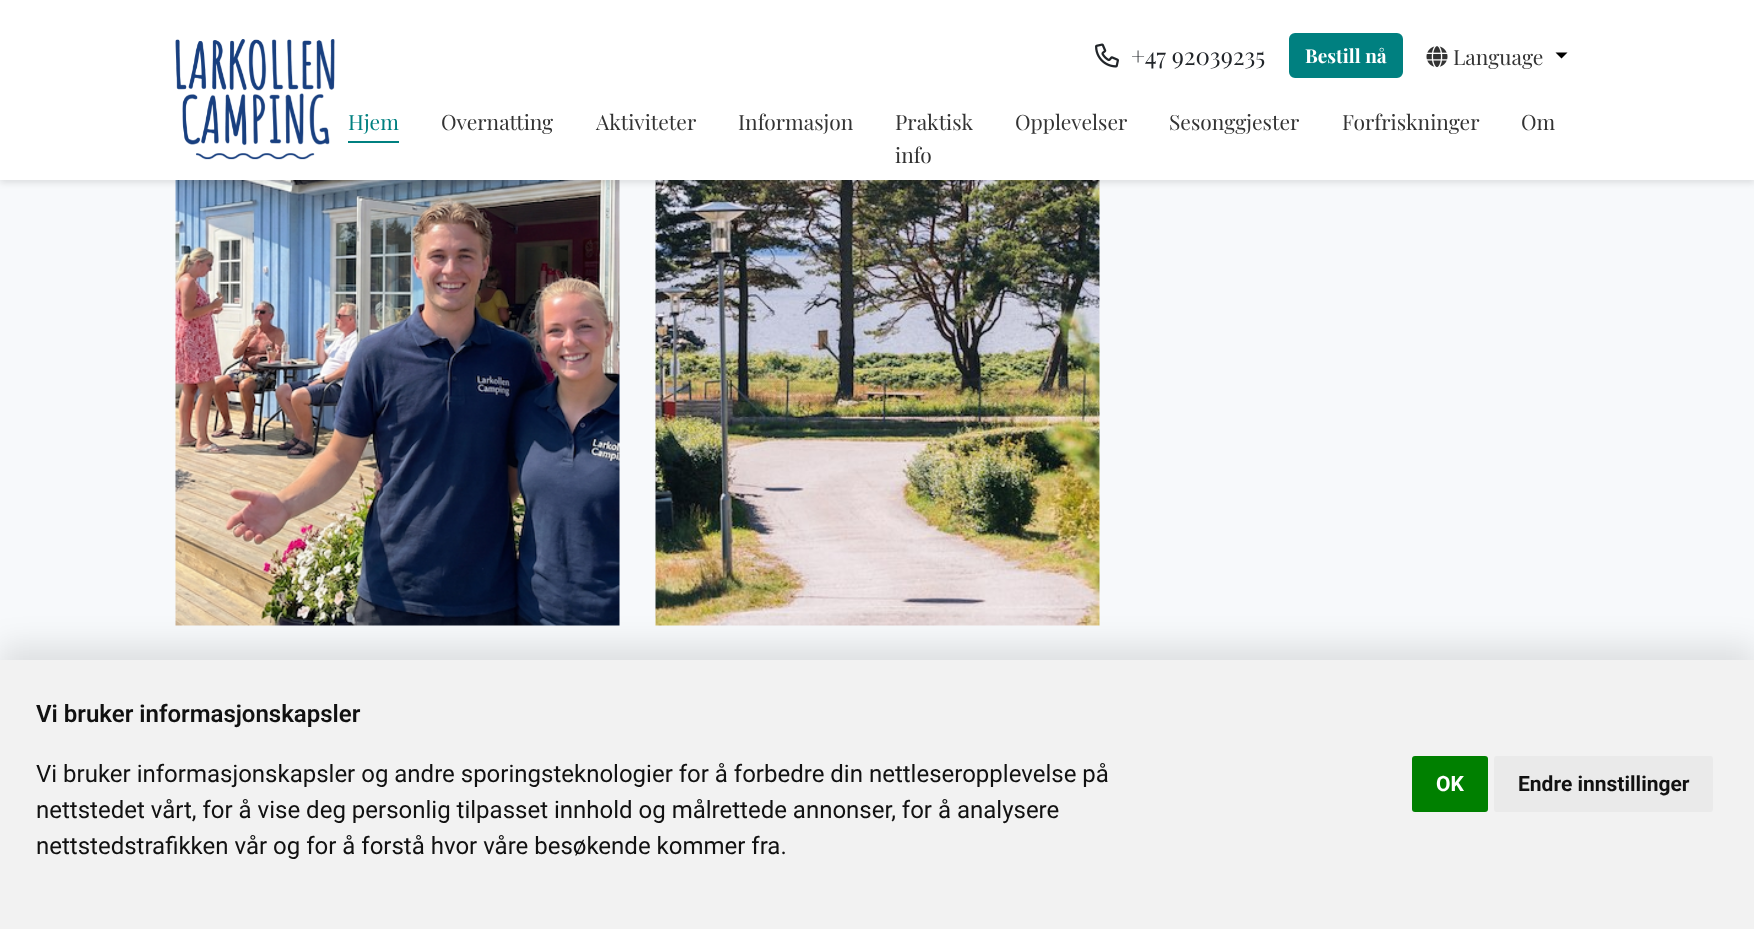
<svg xmlns="http://www.w3.org/2000/svg" xmlns:xlink="http://www.w3.org/1999/xlink" width="1754" height="929" viewBox="0 0 1754 929">
<style>
.cls-1{font:24px Playfair Display;fill:#212529}
.cls-2{font:bold 19px Playfair Display;fill:#ffffff}
.cls-3{font:21px Playfair Display;fill:#333333}
.cls-4{font:21px Playfair Display;fill:#008080}
.cls-5{font:600 24px Roboto;fill:#111111}
.cls-6{font:24px Roboto;fill:#111111}
.cls-7{font:bold 21px Roboto;fill:#ffffff}
.cls-8{font:bold 21px Roboto;fill:#111111}
</style>
<rect width="100%" height="100%" fill="#f7f9fb"/>
<image xlink:href="image3.png" x="175" y="180" width="445" height="446"/>
<image xlink:href="image4.png" x="655" y="180" width="445" height="446"/>
<rect fill="#000000" fill-opacity="0.1" filter="blur(3px)" x="0" y="3" width="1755" height="180"/>
<rect fill="#ffffff" x="0" y="0" width="1754" height="180"/>
<image xlink:href="image0.png" x="175" y="39" width="160" height="121"/>
<image xlink:href="image1.png" x="1095" y="43" width="24" height="25"/>
<rect fill="#008080" stroke="#008080" stroke-width="2" x="1290" y="34" width="112" height="43" rx="5"/>
<image xlink:href="image2.png" x="1426" y="46" width="22" height="22"/>
<path fill="#000000" d="M1555.5 52.5H1567.5L1561.5 58.5Z"/>
<rect fill="#008080" x="348" y="141" width="51" height="2"/>
<rect fill="#000000" fill-opacity="0.1" filter="blur(15px)" x="0" y="645" width="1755" height="270"/>
<rect fill="#f2f2f2" x="0" y="660" width="1754" height="269"/>
<rect fill="#008000" x="1412" y="756" width="76" height="56" rx="3"/>
<rect fill="#eaeaea" x="1494" y="756" width="219" height="56" rx="3"/>
<text class="cls-1" x="1131" y="65">+47 92039235</text>
<text class="cls-2" x="1305" y="63">Bestill nå</text>
<text class="cls-3" x="1453" y="65">Language</text>
<text class="cls-4" x="348" y="130">Hjem</text>
<text class="cls-3" x="441" y="130">Overnatting</text>
<text class="cls-3" x="596" y="130">Aktiviteter</text>
<text class="cls-3" x="738" y="130">Informasjon</text>
<text class="cls-3"><tspan x="895" y="130">Praktisk</tspan><tspan x="895" y="163">info</tspan></text>
<text class="cls-3" x="1015" y="130">Opplevelser</text>
<text class="cls-3" x="1169" y="130">Sesonggjester</text>
<text class="cls-3" x="1342" y="130">Forfriskninger</text>
<text class="cls-3" x="1521" y="130">Om</text>
<text class="cls-5" x="36" y="722">Vi bruker informasjonskapsler</text>
<text class="cls-6"><tspan x="36" y="782">Vi bruker informasjonskapsler og andre sporingsteknologier for å forbedre din nettleseropplevelse på</tspan><tspan x="36" y="818">nettstedet vårt, for å vise deg personlig tilpasset innhold og målrettede annonser, for å analysere</tspan><tspan x="36" y="854">nettstedstrafikken vår og for å forstå hvor våre besøkende kommer fra.</tspan></text>
<text class="cls-7" x="1436" y="791">OK</text>
<text class="cls-8" x="1518" y="791">Endre innstillinger</text>
</svg>
